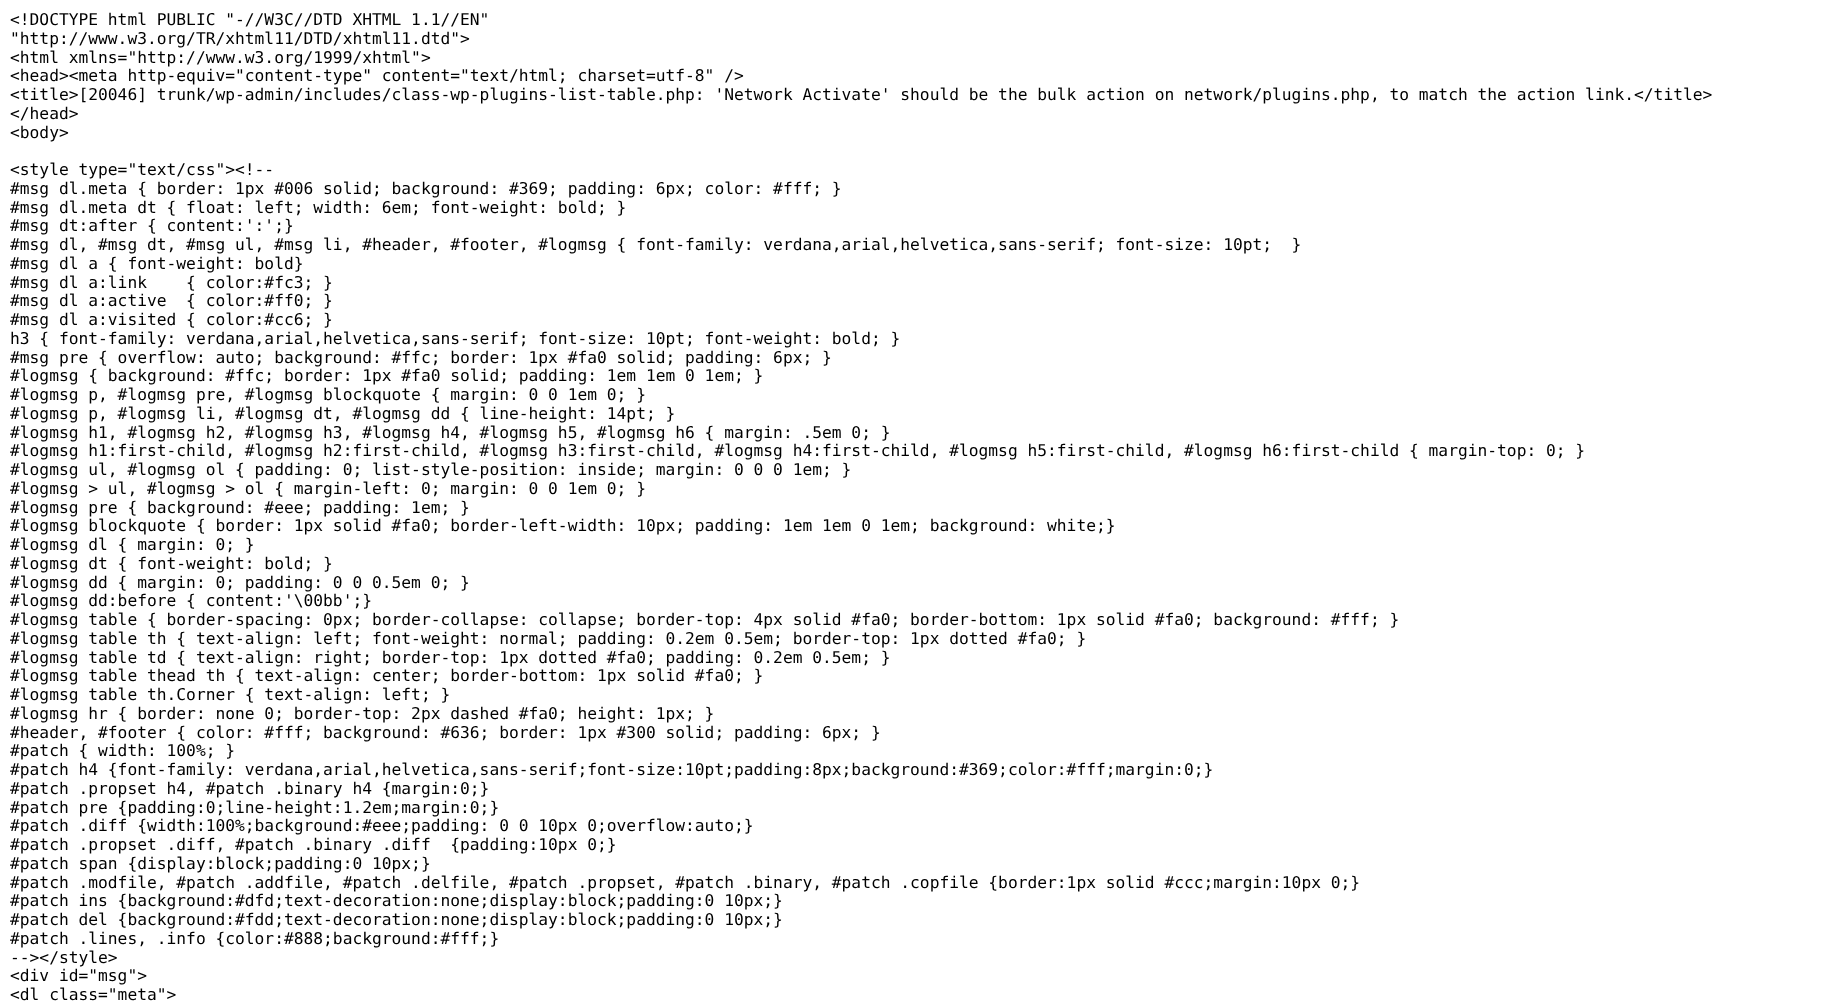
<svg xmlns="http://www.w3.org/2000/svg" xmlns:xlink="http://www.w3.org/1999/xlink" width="1847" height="1006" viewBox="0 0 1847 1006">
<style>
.cls-1{font:16.25px DejaVu Sans Mono;fill:#000000}
</style>
<rect width="100%" height="100%" fill="#ffffff"/>
<text class="cls-1"><tspan x="10" y="25">&lt;!DOCTYPE html PUBLIC "-//W3C//DTD XHTML 1.1//EN"</tspan><tspan x="10" y="44">"http://www.w3.org/TR/xhtml11/DTD/xhtml11.dtd"&gt;</tspan><tspan x="10" y="63">&lt;html xmlns="http://www.w3.org/1999/xhtml"&gt;</tspan><tspan x="10" y="81">&lt;head&gt;&lt;meta http-equiv="content-type" content="text/html; charset=utf-8" /&gt;</tspan><tspan x="10" y="100">&lt;title&gt;[20046] trunk/wp-admin/includes/class-wp-plugins-list-table.php: 'Network Activate' should be the bulk action on network/plugins.php, to match the action link.&lt;/title&gt;</tspan><tspan x="10" y="119">&lt;/head&gt;</tspan><tspan x="10" y="138">&lt;body&gt;</tspan></text>
<text class="cls-1" xml:space="preserve"><tspan x="10" y="175">&lt;style type="text/css"&gt;&lt;!--</tspan><tspan x="10" y="194">#msg dl.meta { border: 1px #006 solid; background: #369; padding: 6px; color: #fff; }</tspan><tspan x="10" y="213">#msg dl.meta dt { float: left; width: 6em; font-weight: bold; }</tspan><tspan x="10" y="231">#msg dt:after { content:':';}</tspan><tspan x="10" y="250">#msg dl, #msg dt, #msg ul, #msg li, #header, #footer, #logmsg { font-family: verdana,arial,helvetica,sans-serif; font-size: 10pt;  }</tspan><tspan x="10" y="269">#msg dl a { font-weight: bold}</tspan><tspan x="10" y="288">#msg dl a:link    { color:#fc3; }</tspan><tspan x="10" y="306">#msg dl a:active  { color:#ff0; }</tspan><tspan x="10" y="325">#msg dl a:visited { color:#cc6; }</tspan><tspan x="10" y="344">h3 { font-family: verdana,arial,helvetica,sans-serif; font-size: 10pt; font-weight: bold; }</tspan><tspan x="10" y="363">#msg pre { overflow: auto; background: #ffc; border: 1px #fa0 solid; padding: 6px; }</tspan><tspan x="10" y="381">#logmsg { background: #ffc; border: 1px #fa0 solid; padding: 1em 1em 0 1em; }</tspan><tspan x="10" y="400">#logmsg p, #logmsg pre, #logmsg blockquote { margin: 0 0 1em 0; }</tspan><tspan x="10" y="419">#logmsg p, #logmsg li, #logmsg dt, #logmsg dd { line-height: 14pt; }</tspan><tspan x="10" y="438">#logmsg h1, #logmsg h2, #logmsg h3, #logmsg h4, #logmsg h5, #logmsg h6 { margin: .5em 0; }</tspan><tspan x="10" y="456">#logmsg h1:first-child, #logmsg h2:first-child, #logmsg h3:first-child, #logmsg h4:first-child, #logmsg h5:first-child, #logmsg h6:first-child { margin-top: 0; }</tspan><tspan x="10" y="475">#logmsg ul, #logmsg ol { padding: 0; list-style-position: inside; margin: 0 0 0 1em; }</tspan><tspan x="10" y="494">#logmsg &gt; ul, #logmsg &gt; ol { margin-left: 0; margin: 0 0 1em 0; }</tspan><tspan x="10" y="513">#logmsg pre { background: #eee; padding: 1em; }</tspan><tspan x="10" y="531">#logmsg blockquote { border: 1px solid #fa0; border-left-width: 10px; padding: 1em 1em 0 1em; background: white;}</tspan><tspan x="10" y="550">#logmsg dl { margin: 0; }</tspan><tspan x="10" y="569">#logmsg dt { font-weight: bold; }</tspan><tspan x="10" y="588">#logmsg dd { margin: 0; padding: 0 0 0.5em 0; }</tspan><tspan x="10" y="606">#logmsg dd:before { content:'\00bb';}</tspan><tspan x="10" y="625">#logmsg table { border-spacing: 0px; border-collapse: collapse; border-top: 4px solid #fa0; border-bottom: 1px solid #fa0; background: #fff; }</tspan><tspan x="10" y="644">#logmsg table th { text-align: left; font-weight: normal; padding: 0.2em 0.5em; border-top: 1px dotted #fa0; }</tspan><tspan x="10" y="663">#logmsg table td { text-align: right; border-top: 1px dotted #fa0; padding: 0.2em 0.5em; }</tspan><tspan x="10" y="681">#logmsg table thead th { text-align: center; border-bottom: 1px solid #fa0; }</tspan><tspan x="10" y="700">#logmsg table th.Corner { text-align: left; }</tspan><tspan x="10" y="719">#logmsg hr { border: none 0; border-top: 2px dashed #fa0; height: 1px; }</tspan><tspan x="10" y="738">#header, #footer { color: #fff; background: #636; border: 1px #300 solid; padding: 6px; }</tspan><tspan x="10" y="756">#patch { width: 100%; }</tspan><tspan x="10" y="775">#patch h4 {font-family: verdana,arial,helvetica,sans-serif;font-size:10pt;padding:8px;background:#369;color:#fff;margin:0;}</tspan><tspan x="10" y="794">#patch .propset h4, #patch .binary h4 {margin:0;}</tspan><tspan x="10" y="813">#patch pre {padding:0;line-height:1.2em;margin:0;}</tspan><tspan x="10" y="831">#patch .diff {width:100%;background:#eee;padding: 0 0 10px 0;overflow:auto;}</tspan><tspan x="10" y="850">#patch .propset .diff, #patch .binary .diff  {padding:10px 0;}</tspan><tspan x="10" y="869">#patch span {display:block;padding:0 10px;}</tspan><tspan x="10" y="888">#patch .modfile, #patch .addfile, #patch .delfile, #patch .propset, #patch .binary, #patch .copfile {border:1px solid #ccc;margin:10px 0;}</tspan><tspan x="10" y="906">#patch ins {background:#dfd;text-decoration:none;display:block;padding:0 10px;}</tspan><tspan x="10" y="925">#patch del {background:#fdd;text-decoration:none;display:block;padding:0 10px;}</tspan><tspan x="10" y="944">#patch .lines, .info {color:#888;background:#fff;}</tspan><tspan x="10" y="963">--&gt;&lt;/style&gt;</tspan><tspan x="10" y="981">&lt;div id="msg"&gt;</tspan><tspan x="10" y="1000">&lt;dl class="meta"&gt;</tspan></text>
</svg>
